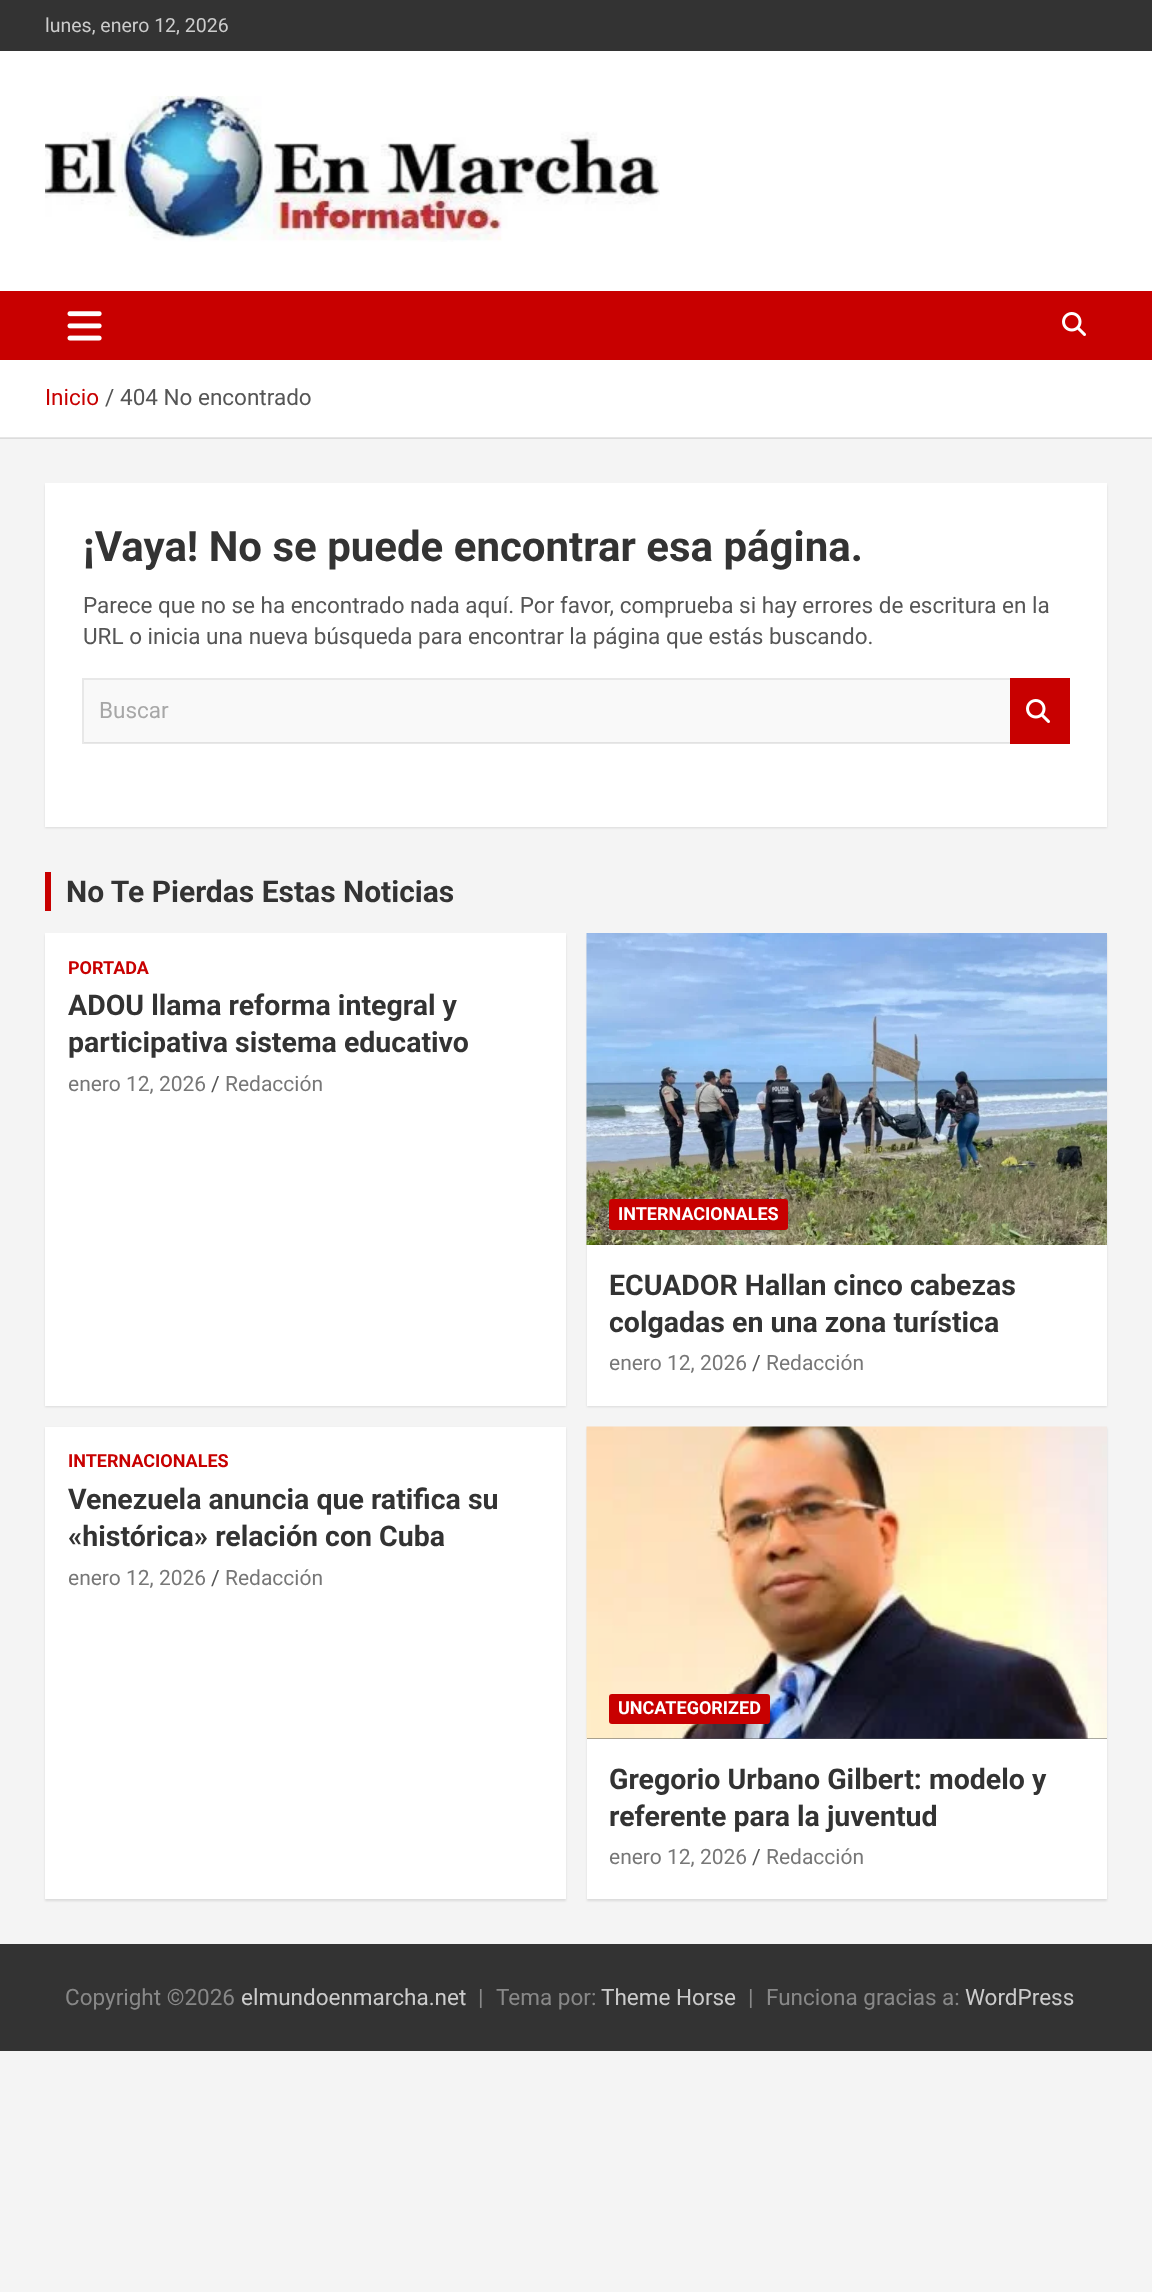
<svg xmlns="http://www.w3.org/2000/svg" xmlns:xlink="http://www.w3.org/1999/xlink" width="1152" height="2292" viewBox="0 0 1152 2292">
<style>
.cls-1{font:19.5px Roboto;fill:#cccccc}
.cls-2{font:22.5px Roboto;fill:#c80000}
.cls-3{font:22.5px Roboto;fill:#555555}
.cls-4{font:bold 42px Roboto;fill:#333333}
.cls-5{font:22.5px Roboto;fill:#a7a7a7}
.cls-6{font:bold 30px Roboto;fill:#333333}
.cls-7{font:bold 18px Roboto;fill:#c80000}
.cls-8{font:bold 28.5px Roboto;fill:#333333}
.cls-9{font:21px Roboto;fill:#777777}
.cls-10{font:21px Roboto;fill:#555555}
.cls-11{font:bold 18px Roboto;fill:#ffffff}
.cls-12{font:22.5px Roboto;fill:#888888}
.cls-13{font:22.5px Roboto;fill:#cccccc}
</style>
<rect width="100%" height="100%" fill="#f4f4f4"/>
<rect fill="#dcdcdc" x="0" y="438" width="1152" height="1"/>
<rect fill="#333333" x="0" y="0" width="1152" height="51"/>
<rect fill="#ffffff" x="0" y="51" width="1152" height="240"/>
<image xlink:href="image0.png" x="45" y="96" width="615" height="146"/>
<rect fill="#c80000" x="0" y="291" width="1152" height="69"/>
<image xlink:href="image1.png" x="67" y="311" width="35" height="30"/>
<image xlink:href="image2.png" x="1062" y="312" width="24" height="24"/>
<rect fill="#ffffff" x="0" y="360" width="1152" height="77"/>
<rect fill="#e6e6e6" x="0" y="437" width="1152" height="1"/>
<rect fill="#000000" fill-opacity="0.1" filter="blur(1px)" x="45" y="485" width="1062" height="343"/>
<rect fill="#ffffff" x="45" y="483" width="1062" height="344"/>
<rect fill="#f9f9f9" x="84" y="680" width="926" height="63"/>
<path fill="#e8e8e8" d="M82 678H1010V680H84Z"/>
<path fill="#000000" fill-opacity="0.09" d="M1010 744H82L84 742H1010Z"/>
<path fill="#000000" fill-opacity="0.09" d="M82 744V678L84 680V742Z"/>
<rect fill="#c80000" x="1010" y="678" width="60" height="66"/>
<image xlink:href="image2.png" x="1026" y="699" width="24" height="24"/>
<rect fill="#c80000" x="45" y="872" width="6" height="39"/>
<rect fill="#000000" fill-opacity="0.1" filter="blur(1px)" x="45" y="935" width="521" height="472"/>
<rect fill="#ffffff" x="45" y="933" width="521" height="473"/>
<rect fill="#000000" fill-opacity="0.1" filter="blur(1px)" x="587" y="935" width="520" height="472"/>
<rect fill="#ffffff" x="587" y="1245" width="520" height="161"/>
<image xlink:href="image3.png" x="586" y="933" width="521" height="312"/>
<rect fill="#c80000" x="609" y="1199" width="179" height="31" rx="3"/>
<rect fill="#000000" fill-opacity="0.1" filter="blur(1px)" x="45" y="1428" width="521" height="473"/>
<rect fill="#ffffff" x="45" y="1427" width="521" height="472"/>
<rect fill="#000000" fill-opacity="0.1" filter="blur(1px)" x="587" y="1428" width="520" height="473"/>
<rect fill="#ffffff" x="587" y="1739" width="520" height="160"/>
<rect fill="#555555" x="587" y="1738" width="520" height="1"/>
<image xlink:href="image4.png" x="586" y="1426" width="521" height="313"/>
<rect fill="#c80000" x="609" y="1694" width="161" height="30" rx="3"/>
<rect fill="#333333" x="0" y="1944" width="1152" height="107"/>
<text class="cls-1" x="45" y="32">lunes, enero 12, 2026</text>
<text class="cls-2" x="45" y="405">Inicio</text>
<text class="cls-3" x="105" y="405">/</text>
<text class="cls-3" x="120" y="405">404 No encontrado</text>
<text class="cls-4" x="83" y="561">¡Vaya! No se puede encontrar esa página.</text>
<text class="cls-3"><tspan x="83" y="613">Parece que no se ha encontrado nada aquí. Por favor, comprueba si hay errores de escritura en la</tspan><tspan x="83" y="644">URL o inicia una nueva búsqueda para encontrar la página que estás buscando.</tspan></text>
<text class="cls-5" x="99" y="718">Buscar</text>
<text class="cls-6" x="66" y="902">No Te Pierdas Estas Noticias</text>
<text class="cls-7" x="68" y="974">PORTADA</text>
<text class="cls-8"><tspan x="68" y="1015">ADOU llama reforma integral y</tspan><tspan x="68" y="1052">participativa sistema educativo</tspan></text>
<text class="cls-9" x="68" y="1091">enero 12, 2026</text>
<text class="cls-10" x="211" y="1091">/</text>
<text class="cls-9" x="225" y="1091">Redacción</text>
<text class="cls-11" x="618" y="1220">INTERNACIONALES</text>
<text class="cls-8"><tspan x="609" y="1295">ECUADOR Hallan cinco cabezas</tspan><tspan x="609" y="1332">colgadas en una zona turística</tspan></text>
<text class="cls-9" x="609" y="1370">enero 12, 2026</text>
<text class="cls-10" x="752" y="1370">/</text>
<text class="cls-9" x="766" y="1370">Redacción</text>
<text class="cls-7" x="68" y="1467">INTERNACIONALES</text>
<text class="cls-8"><tspan x="68" y="1509">Venezuela anuncia que ratifica su</tspan><tspan x="68" y="1546">«histórica» relación con Cuba</tspan></text>
<text class="cls-9" x="68" y="1585">enero 12, 2026</text>
<text class="cls-10" x="211" y="1585">/</text>
<text class="cls-9" x="225" y="1585">Redacción</text>
<text class="cls-11" x="618" y="1714">UNCATEGORIZED</text>
<text class="cls-8"><tspan x="609" y="1789">Gregorio Urbano Gilbert: modelo y</tspan><tspan x="609" y="1826">referente para la juventud</tspan></text>
<text class="cls-9" x="609" y="1864">enero 12, 2026</text>
<text class="cls-10" x="752" y="1864">/</text>
<text class="cls-9" x="766" y="1864">Redacción</text>
<text class="cls-12" x="65" y="2005">Copyright ©2026</text>
<text class="cls-13" x="241" y="2005">elmundoenmarcha.net</text>
<text class="cls-12" x="478" y="2005">|</text>
<text class="cls-12" x="496" y="2005">Tema por:</text>
<text class="cls-13" x="601" y="2005">Theme Horse</text>
<text class="cls-12" x="748" y="2005">|</text>
<text class="cls-12" x="766" y="2005">Funciona gracias a:</text>
<text class="cls-13" x="965" y="2005">WordPress</text>
</svg>
